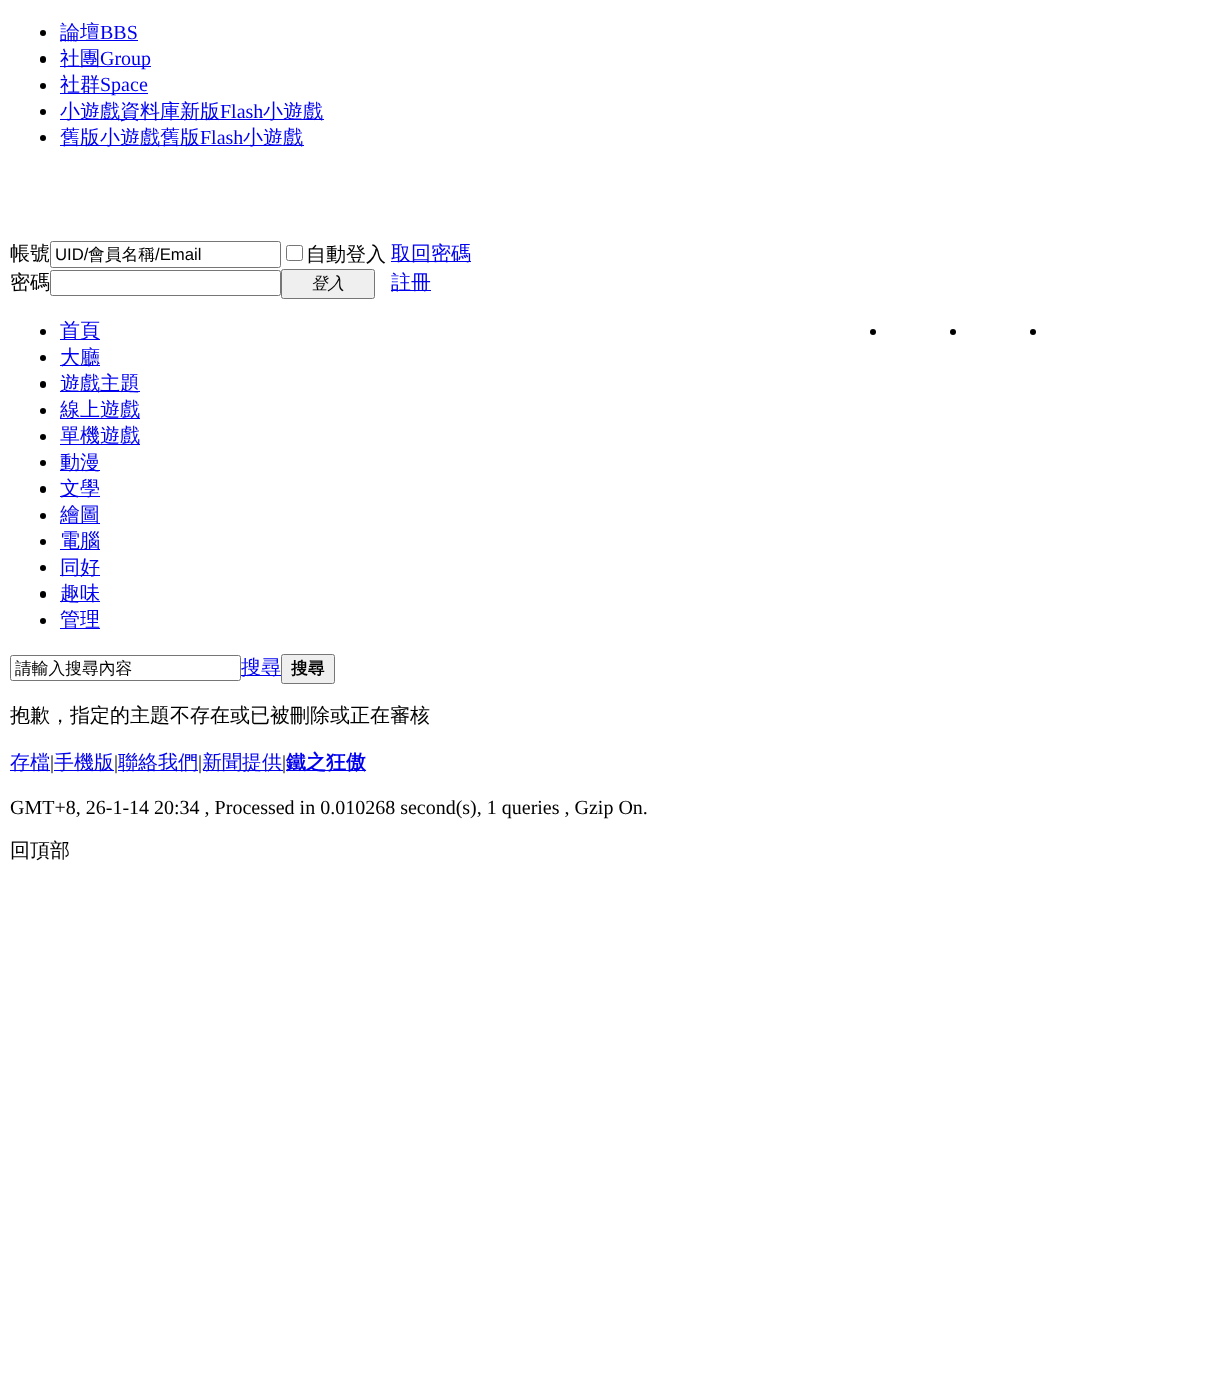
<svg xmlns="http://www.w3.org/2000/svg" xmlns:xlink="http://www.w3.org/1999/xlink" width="1206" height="1382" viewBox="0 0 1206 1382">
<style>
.cls-1{font:500 20px WenQuanYi Zen Hei;fill:#0000ee}
.cls-2{font:20px Liberation Serif;fill:#0000ee}
.cls-3{font:500 20px WenQuanYi Zen Hei;fill:#000000}
.cls-4{font:16.75px Liberation Sans;fill:#000000}
.cls-5{font:500 16.75px WenQuanYi Zen Hei;fill:#000000}
.cls-6{font:italic 500 16.75px WenQuanYi Zen Hei;fill:#000000}
.cls-7{font:bold 16.75px WenQuanYi Zen Hei;fill:#000000}
.cls-8{font:20px Liberation Serif;fill:#000000}
.cls-9{font:bold 20px WenQuanYi Zen Hei;fill:#0000ee}
</style>
<rect width="100%" height="100%" fill="#ffffff"/>
<circle fill="#000000" cx="43" cy="33" r="3"/>
<rect fill="#0000ee" x="60" y="40" width="78" height="1"/>
<rect fill="#000000" x="40" y="56" width="6" height="7" rx="3"/>
<rect fill="#0000ee" x="60" y="66" width="91" height="1"/>
<circle fill="#000000" cx="43" cy="86" r="3"/>
<rect fill="#0000ee" x="60" y="93" width="88" height="1"/>
<circle fill="#000000" cx="43" cy="112" r="3"/>
<rect fill="#0000ee" x="60" y="119" width="264" height="1"/>
<circle fill="#000000" cx="43" cy="138" r="3"/>
<rect fill="#0000ee" x="60" y="145" width="244" height="1"/>
<rect fill="none" stroke="#767676" x="50.5" y="241.5" width="230" height="26" rx="2"/>
<rect fill="none" stroke="#767676" x="286.5" y="245.5" width="16" height="15" rx="2"/>
<rect fill="#0000ee" x="391" y="261" width="80" height="1"/>
<rect fill="none" stroke="#767676" x="50.5" y="270.5" width="230" height="25" rx="2"/>
<rect fill="#efefef" stroke="#767676" x="281.5" y="269.5" width="93" height="29" rx="2"/>
<rect fill="#0000ee" x="391" y="290" width="40" height="1"/>
<circle fill="#000000" cx="43" cy="332" r="3"/>
<rect fill="#0000ee" x="60" y="339" width="40" height="1"/>
<circle fill="#000000" cx="873" cy="332" r="3"/>
<circle fill="#000000" cx="953" cy="332" r="3"/>
<circle fill="#000000" cx="1033" cy="332" r="3"/>
<circle fill="#000000" cx="43" cy="358" r="3"/>
<rect fill="#0000ee" x="60" y="365" width="40" height="1"/>
<rect fill="#000000" x="40" y="381" width="6" height="7" rx="3"/>
<rect fill="#0000ee" x="60" y="391" width="80" height="1"/>
<circle fill="#000000" cx="43" cy="411" r="3"/>
<rect fill="#0000ee" x="60" y="418" width="80" height="1"/>
<circle fill="#000000" cx="43" cy="437" r="3"/>
<rect fill="#0000ee" x="60" y="444" width="80" height="1"/>
<circle fill="#000000" cx="43" cy="463" r="3"/>
<rect fill="#0000ee" x="60" y="470" width="40" height="1"/>
<rect fill="#000000" x="40" y="486" width="6" height="7" rx="3"/>
<rect fill="#0000ee" x="60" y="496" width="40" height="1"/>
<circle fill="#000000" cx="43" cy="516" r="3"/>
<rect fill="#0000ee" x="60" y="523" width="40" height="1"/>
<circle fill="#000000" cx="43" cy="542" r="3"/>
<rect fill="#0000ee" x="60" y="549" width="40" height="1"/>
<circle fill="#000000" cx="43" cy="568" r="3"/>
<rect fill="#0000ee" x="60" y="575" width="40" height="1"/>
<rect fill="#000000" x="40" y="591" width="6" height="7" rx="3"/>
<rect fill="#0000ee" x="60" y="601" width="40" height="1"/>
<circle fill="#000000" cx="43" cy="621" r="3"/>
<rect fill="#0000ee" x="60" y="628" width="40" height="1"/>
<rect fill="none" stroke="#767676" x="10.5" y="655.5" width="230" height="25" rx="2"/>
<rect fill="#0000ee" x="241" y="675" width="40" height="1"/>
<rect fill="#efefef" stroke="#767676" x="281.5" y="654.5" width="53" height="29" rx="2"/>
<rect fill="#0000ee" x="10" y="770" width="40" height="1"/>
<rect fill="#0000ee" x="54" y="770" width="60" height="1"/>
<rect fill="#0000ee" x="118" y="770" width="80" height="1"/>
<rect fill="#0000ee" x="203" y="770" width="80" height="1"/>
<rect fill="#0000ee" x="286" y="770" width="80" height="1"/>
<text class="cls-1" x="60" y="39">論壇</text>
<text class="cls-2" x="100" y="39">BBS</text>
<text class="cls-1" x="60" y="65">社團</text>
<text class="cls-2" x="100" y="65">Group</text>
<text class="cls-1" x="60" y="91">社群</text>
<text class="cls-2" x="100" y="91">Space</text>
<text class="cls-1" x="60" y="118">小遊戲資料庫新版</text>
<text class="cls-2" x="220" y="118">Flash</text>
<text class="cls-1" x="263" y="118">小遊戲</text>
<text class="cls-1" x="60" y="144">舊版小遊戲舊版</text>
<text class="cls-2" x="200" y="144">Flash</text>
<text class="cls-1" x="243" y="144">小遊戲</text>
<text class="cls-3" x="10" y="260">帳號</text>
<text class="cls-4" x="55" y="260">UID/</text>
<text class="cls-5" x="88" y="260">會員名稱</text>
<text class="cls-4" x="155" y="260">/Email</text>
<text class="cls-3" x="306" y="261">自動登入</text>
<text class="cls-1" x="391" y="260">取回密碼</text>
<text class="cls-3" x="10" y="289">密碼</text>
<text class="cls-6" x="311" y="289">登入</text>
<text class="cls-1" x="391" y="289">註冊</text>
<text class="cls-1"><tspan x="60" y="337">首頁</tspan><tspan x="60" y="364">大廳</tspan><tspan x="60" y="390">遊戲主題</tspan><tspan x="60" y="416">線上遊戲</tspan><tspan x="60" y="442">單機遊戲</tspan><tspan x="60" y="469">動漫</tspan><tspan x="60" y="495">文學</tspan><tspan x="60" y="521">繪圖</tspan><tspan x="60" y="547">電腦</tspan><tspan x="60" y="574">同好</tspan><tspan x="60" y="600">趣味</tspan><tspan x="60" y="626">管理</tspan></text>
<text class="cls-5" x="15" y="674">請輸入搜尋內容</text>
<text class="cls-1" x="241" y="674">搜尋</text>
<text class="cls-7" x="291" y="674">搜尋</text>
<text class="cls-3" x="10" y="722">抱歉，指定的主題不存在或已被刪除或正在審核</text>
<text class="cls-1" x="10" y="769">存檔</text>
<text class="cls-8" x="50" y="769">|</text>
<text class="cls-1" x="54" y="769">手機版</text>
<text class="cls-8" x="114" y="769">|</text>
<text class="cls-1" x="118" y="769">聯絡我們</text>
<text class="cls-8" x="198" y="769">|</text>
<text class="cls-1" x="202" y="769">新聞提供</text>
<text class="cls-8" x="282" y="769">|</text>
<text class="cls-9" x="286" y="769">鐵之狂傲</text>
<text class="cls-8" x="10" y="814">GMT+8, 26-1-14 20:34 , Processed in 0.010268 second(s), 1 queries , Gzip On.</text>
<text class="cls-3" x="10" y="857">回頂部</text>
</svg>
